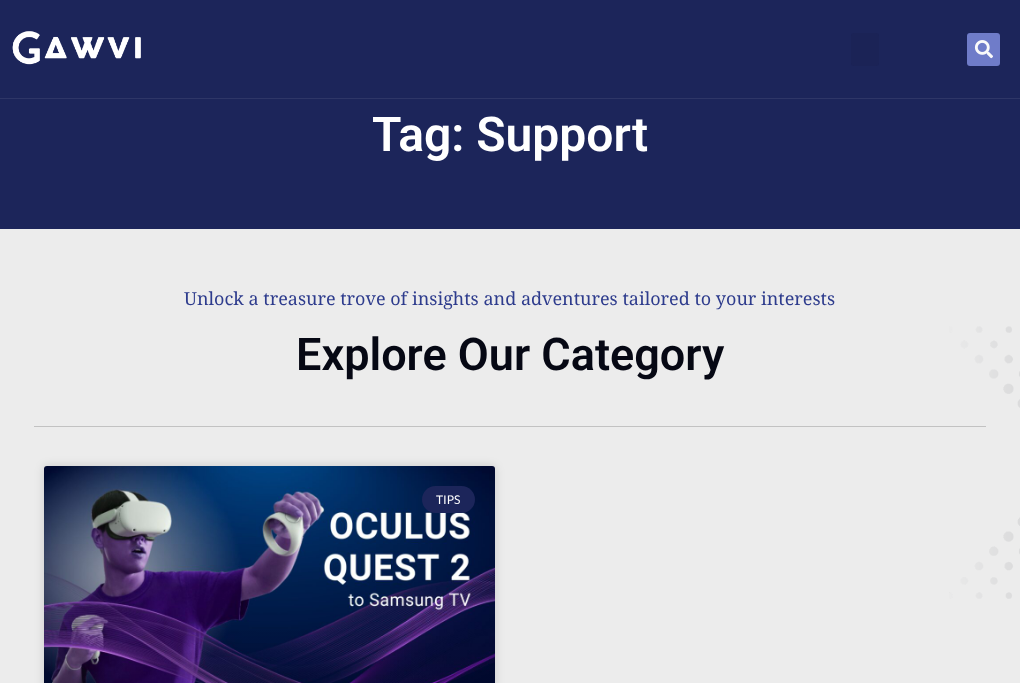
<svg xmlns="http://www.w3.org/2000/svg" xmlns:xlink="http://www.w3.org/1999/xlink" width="1020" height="683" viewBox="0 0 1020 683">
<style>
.cls-1{font:600 48px Roboto;fill:#ffffff}
.cls-2{font:18px Noto Serif;fill:#2e3c8d}
.cls-3{font:600 45px Roboto;fill:#060814}
.cls-4{font:12px Lato;fill:#ffffff}
</style>
<defs>
<linearGradient id="g1" gradientUnits="userSpaceOnUse" x1="270" y1="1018" x2="270" y2="466"><stop offset="0" stop-color="#000000" stop-opacity="0.35"/><stop offset="0.75" stop-color="#000000" stop-opacity="0"/></linearGradient>
</defs>
<rect width="100%" height="100%" fill="#1c255a"/>
<rect fill="#2e3667" x="0" y="98" width="1020" height="1"/>
<image xlink:href="image0.png" x="12" y="31" width="129" height="34"/>
<rect fill="#1b2356" x="851" y="33" width="28" height="33" rx="3"/>
<rect fill="#6f7cc9" x="967" y="33" width="33" height="33" rx="3"/>
<image xlink:href="image1.png" x="974" y="40" width="19" height="19"/>
<rect fill="#ececec" x="0" y="229" width="1020" height="454"/>
<image xlink:href="image2.png" x="949" y="326" width="71" height="273"/>
<rect fill="#c2c2c2" x="34" y="426" width="952" height="1"/>
<rect fill="#000000" fill-opacity="0.15" filter="blur(5px)" x="44" y="466" width="451" height="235" rx="3"/>
<image xlink:href="image3.png" x="44" y="466" width="451" height="217"/>
<rect fill="url(#g1)" x="44" y="630" width="451" height="53"/>
<rect fill="#1c255a" x="422" y="486" width="53" height="27" rx="13.5"/>
<text class="cls-1" x="372" y="151">Tag: Support</text>
<text class="cls-2" x="184" y="305">Unlock a treasure trove of insights and adventures tailored to your interests</text>
<text class="cls-3" x="296" y="370">Explore Our Category</text>
<text class="cls-4" x="436" y="504">TIPS</text>
</svg>
